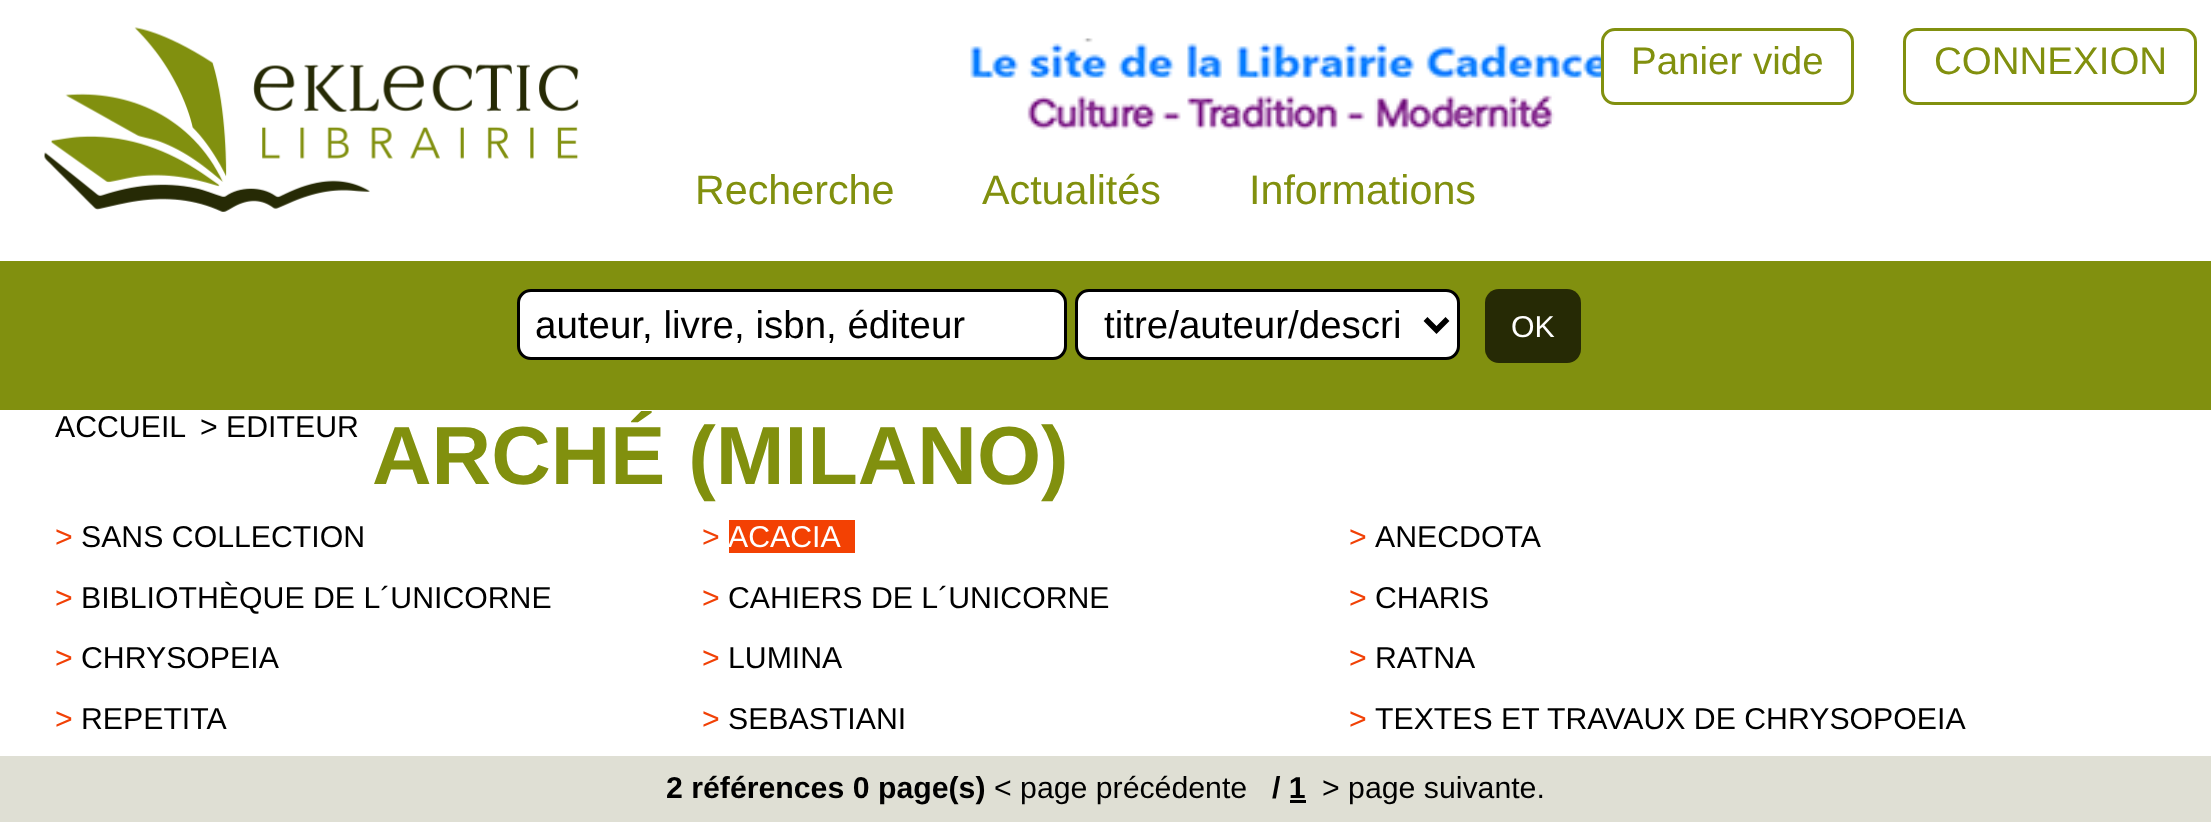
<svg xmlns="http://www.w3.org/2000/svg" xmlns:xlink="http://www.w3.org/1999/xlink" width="2211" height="822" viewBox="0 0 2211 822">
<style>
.cls-1{font:38.5px Liberation Sans;fill:#81900e}
.cls-2{font:41.25px Liberation Sans;fill:#81900e}
.cls-3{font:38.5px Liberation Sans;fill:#000000}
.cls-4{font:30.25px Liberation Sans;fill:#ffffff}
.cls-5{font:30.25px Liberation Sans;fill:#000000}
.cls-6{font:bold 82.5px Liberation Sans;fill:#81900e}
.cls-7{font:30.25px Liberation Sans;fill:#f14106}
.cls-8{font:bold 30.25px Liberation Sans;fill:#000000}
</style>
<rect width="100%" height="100%" fill="#81900f"/>
<rect fill="#ffffff" x="0" y="0" width="2211" height="261"/>
<image xlink:href="image0.png" x="44" y="27" width="535" height="185"/>
<image xlink:href="image1.png" x="970" y="38" width="640" height="92"/>
<rect fill="#ffffff" stroke="#81900f" stroke-width="3" x="1602.5" y="29.5" width="250" height="74" rx="12.5"/>
<rect fill="none" stroke="#81900f" stroke-width="3" x="1904.5" y="29.5" width="291" height="74" rx="12.5"/>
<rect fill="#ffffff" stroke="#000000" stroke-width="3" x="518.5" y="290.5" width="547" height="68" rx="12.5"/>
<rect fill="#ffffff" stroke="#000000" stroke-width="3" x="1076.5" y="290.5" width="382" height="68" rx="12.5"/>
<path fill="none" stroke="#000000" stroke-width="5.5" d="M1425.5 319L1436.5 330L1447.5 319"/>
<rect fill="#262a05" x="1485" y="289" width="96" height="74" rx="14"/>
<rect fill="#ffffff" x="0" y="410" width="2211" height="346"/>
<rect fill="#f34103" x="729" y="520" width="126" height="33"/>
<rect fill="#dfdfd4" x="0" y="756" width="2211" height="66"/>
<rect fill="#000000" x="1290" y="800" width="16" height="3"/>
<text class="cls-1" x="1631" y="74">Panier vide</text>
<text class="cls-1" x="1934" y="74">CONNEXION</text>
<text class="cls-2" x="695" y="204">Recherche</text>
<text class="cls-2" x="982" y="204">Actualités</text>
<text class="cls-2" x="1249" y="204">Informations</text>
<text class="cls-3" x="535" y="338">auteur, livre, isbn, éditeur</text>
<text class="cls-3" x="1104" y="338">titre/auteur/descri</text>
<text class="cls-4" x="1511" y="337">OK</text>
<text class="cls-5" x="55" y="437">ACCUEIL</text>
<text class="cls-5" x="200" y="437">&gt; EDITEUR</text>
<text class="cls-6" x="372" y="484">ARCHÉ (MILANO)</text>
<text class="cls-7" x="55" y="547">&gt;</text>
<text class="cls-5" x="81" y="547">SANS COLLECTION</text>
<text class="cls-7" x="702" y="547">&gt;</text>
<text class="cls-4" x="728" y="547">ACACIA</text>
<text class="cls-7" x="1349" y="547">&gt;</text>
<text class="cls-5" x="1375" y="547">ANECDOTA</text>
<text class="cls-7" x="55" y="608">&gt;</text>
<text class="cls-5" x="81" y="608">BIBLIOTHÈQUE DE L´UNICORNE</text>
<text class="cls-7" x="702" y="608">&gt;</text>
<text class="cls-5" x="728" y="608">CAHIERS DE L´UNICORNE</text>
<text class="cls-7" x="1349" y="608">&gt;</text>
<text class="cls-5" x="1375" y="608">CHARIS</text>
<text class="cls-7" x="55" y="668">&gt;</text>
<text class="cls-5" x="81" y="668">CHRYSOPEIA</text>
<text class="cls-7" x="702" y="668">&gt;</text>
<text class="cls-5" x="728" y="668">LUMINA</text>
<text class="cls-7" x="1349" y="668">&gt;</text>
<text class="cls-5" x="1375" y="668">RATNA</text>
<text class="cls-7" x="55" y="729">&gt;</text>
<text class="cls-5" x="81" y="729">REPETITA</text>
<text class="cls-7" x="702" y="729">&gt;</text>
<text class="cls-5" x="728" y="729">SEBASTIANI</text>
<text class="cls-7" x="1349" y="729">&gt;</text>
<text class="cls-5" x="1375" y="729">TEXTES ET TRAVAUX DE CHRYSOPOEIA</text>
<text class="cls-8" x="666" y="798">2 références 0 page(s)</text>
<text class="cls-5" x="994" y="798">&lt; page précédente</text>
<text class="cls-8" x="1272" y="798">/ 1</text>
<text class="cls-5" x="1322" y="798">&gt; page suivante.</text>
</svg>
